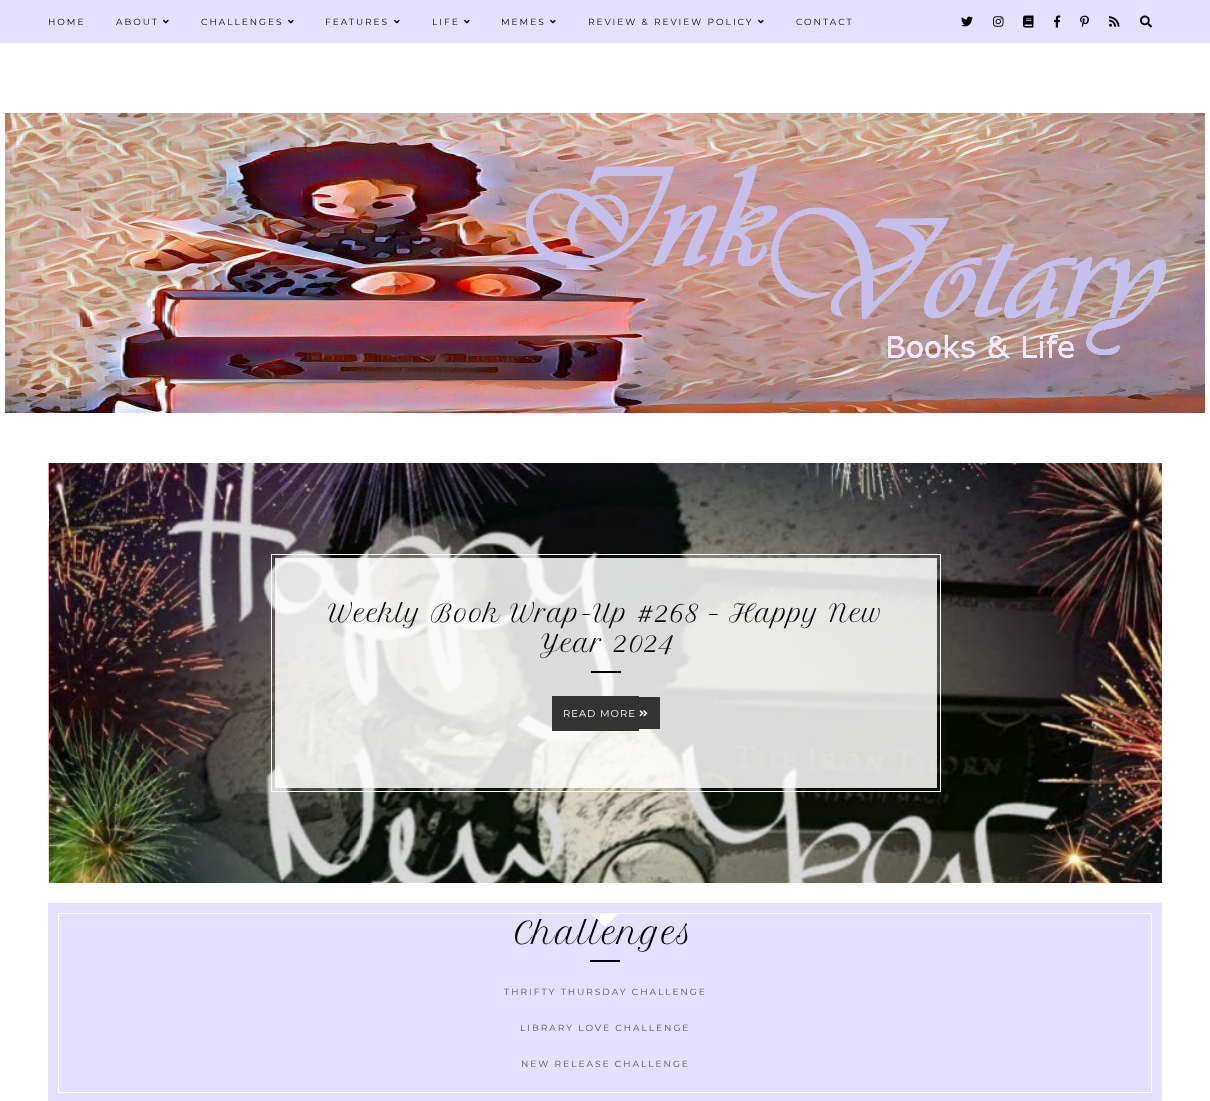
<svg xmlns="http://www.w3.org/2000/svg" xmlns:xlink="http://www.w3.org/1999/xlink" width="1210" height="1101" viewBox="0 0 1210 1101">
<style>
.cls-1{font:100 9px Montserrat;letter-spacing:2px;fill:#000000}
.cls-2{font:24px Petit Formal Script;letter-spacing:0.5px;fill:#000000}
.cls-3{font:100 10px Montserrat;letter-spacing:1px;fill:#ffffff}
.cls-4{font:30px Petit Formal Script;letter-spacing:1px;fill:#000000}
.cls-5{font:100 9px Montserrat;letter-spacing:2px;fill:#4f4f4f}
</style>
<defs>
<linearGradient id="g1" gradientUnits="userSpaceOnUse" x1="605" y1="927" x2="605" y2="899"><stop offset="0.5" stop-color="#ffffff"/><stop offset="0.5" stop-color="#ffffff" stop-opacity="0"/></linearGradient>
</defs>
<rect width="100%" height="100%" fill="#ffffff"/>
<rect fill="#e5e0ff" x="0" y="0" width="1210" height="43"/>
<image xlink:href="image0.png" x="163" y="19" width="6" height="5"/>
<image xlink:href="image0.png" x="288" y="19" width="6" height="5"/>
<image xlink:href="image0.png" x="394" y="19" width="6" height="5"/>
<image xlink:href="image0.png" x="464" y="19" width="6" height="5"/>
<image xlink:href="image0.png" x="550" y="19" width="6" height="5"/>
<image xlink:href="image0.png" x="758" y="19" width="6" height="5"/>
<image xlink:href="image1.png" x="961" y="16" width="12" height="11"/>
<image xlink:href="image2.png" x="993" y="16" width="11" height="11"/>
<image xlink:href="image3.png" x="1023" y="15" width="11" height="13"/>
<image xlink:href="image4.png" x="1054" y="15" width="7" height="13"/>
<image xlink:href="image5.png" x="1080" y="15" width="9" height="13"/>
<image xlink:href="image6.png" x="1109" y="16" width="11" height="11"/>
<image xlink:href="image7.png" x="1140" y="15" width="12" height="13"/>
<image xlink:href="image8.png" x="5" y="113" width="1200" height="300"/>
<image xlink:href="image9.png" x="48" y="463" width="1" height="420"/>
<image xlink:href="image10.png" x="49" y="463" width="1113" height="420"/>
<rect fill="#ffffff" fill-opacity="0.85" x="275" y="558" width="662" height="230"/>
<rect fill="none" stroke="#ffffff" x="271.5" y="554.5" width="669" height="237"/>
<rect fill="#000000" x="591" y="671" width="30" height="2"/>
<rect fill="#333333" x="552" y="696" width="87" height="35"/>
<rect fill="#333333" x="639" y="697" width="21" height="32"/>
<image xlink:href="image11.png" x="639" y="710" width="9" height="7"/>
<rect fill="#e5e0ff" x="48" y="903" width="1114" height="198"/>
<rect fill="none" stroke="#ffffff" x="58.5" y="913.5" width="1093" height="179"/>
<rect fill="#000000" x="590" y="960" width="30" height="2"/>
<text class="cls-1" x="48" y="25">HOME</text>
<text class="cls-1" x="116" y="25">ABOUT</text>
<text class="cls-1" x="201" y="25">CHALLENGES</text>
<text class="cls-1" x="325" y="25">FEATURES</text>
<text class="cls-1" x="432" y="25">LIFE</text>
<text class="cls-1" x="501" y="25">MEMES</text>
<text class="cls-1" x="588" y="25">REVIEW &amp; REVIEW POLICY</text>
<text class="cls-1" x="796" y="25">CONTACT</text>
<text class="cls-2" x="328" y="622">Weekly Book Wrap-Up #268 – Happy New</text>
<text class="cls-2" x="540" y="652">Year 2024</text>
<text class="cls-3" x="563" y="717">READ MORE</text>
<text class="cls-4" x="515" y="944">Challenges</text>
<path fill="url(#g1)" d="M591 913L605 899L619 913L605 927Z"/>
<text class="cls-5" x="504" y="995">THRIFTY THURSDAY CHALLENGE</text>
<text class="cls-5" x="520" y="1031">LIBRARY LOVE CHALLENGE</text>
<text class="cls-5" x="521" y="1067">NEW RELEASE CHALLENGE</text>
</svg>
